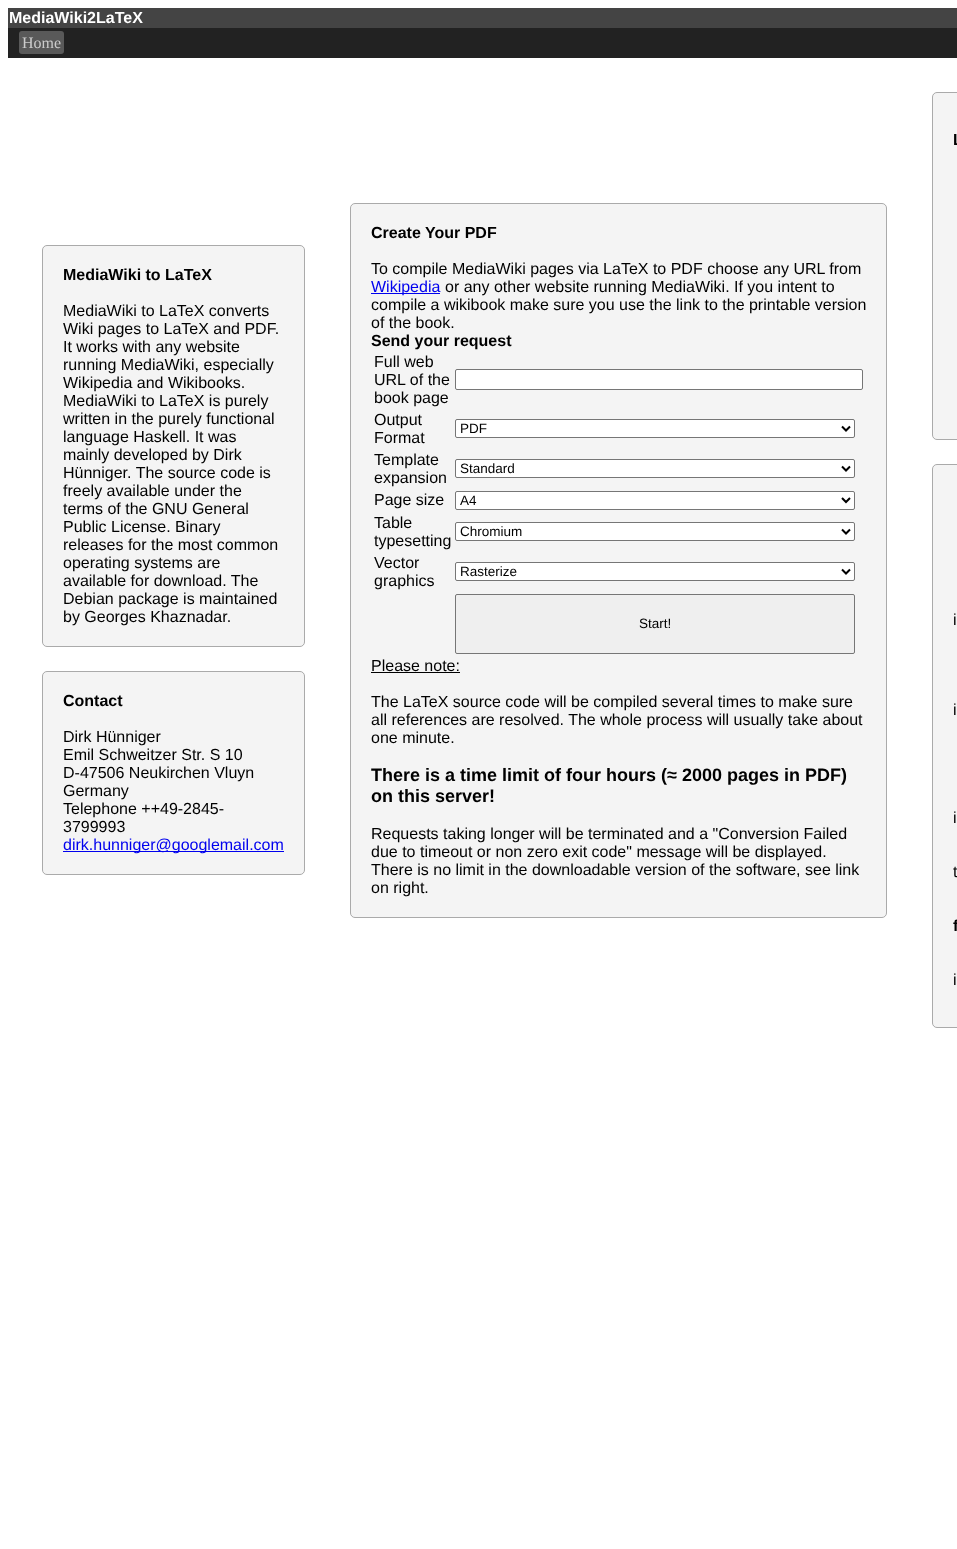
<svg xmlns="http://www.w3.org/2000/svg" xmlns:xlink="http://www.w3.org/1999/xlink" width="957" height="1549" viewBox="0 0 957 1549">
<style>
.cls-1{font:bold 16px Liberation Sans;fill:#ffffff}
.cls-2{font:16px Liberation Serif;fill:#cccccc}
.cls-3{font:bold 16px Liberation Sans;fill:#000000}
.cls-4{font:16px Liberation Sans;fill:#000000}
.cls-5{font:16px Liberation Sans;fill:#0000ee}
.cls-6{font:13.5px Liberation Sans;fill:#000000}
.cls-7{font:bold 18px Liberation Sans;fill:#000000}
</style>
<rect width="100%" height="100%" fill="#ffffff"/>
<rect fill="#444444" x="8" y="8" width="949" height="20"/>
<rect fill="#222222" x="8" y="28" width="949" height="30"/>
<rect fill="#595959" x="19" y="31" width="45" height="23" rx="3"/>
<rect fill="#f4f4f4" stroke="#aaaaaa" x="42.5" y="245.5" width="262" height="401" rx="4.5"/>
<rect fill="#f4f4f4" stroke="#aaaaaa" x="42.5" y="671.5" width="262" height="203" rx="4.5"/>
<rect fill="#0000ee" x="63" y="851" width="221" height="1"/>
<rect fill="#f4f4f4" stroke="#aaaaaa" x="350.5" y="203.5" width="536" height="714" rx="4.5"/>
<rect fill="#0000ee" x="371" y="293" width="69" height="1"/>
<rect fill="#ffffff" stroke="#767676" x="455.5" y="369.5" width="407" height="20" rx="1.5"/>
<rect fill="#ffffff" stroke="#767676" x="455.5" y="419.5" width="399" height="18" rx="1.5"/>
<path fill="none" stroke="#000000" stroke-width="2" d="M842 426.5L846 430.5L850 426.5"/>
<rect fill="#ffffff" stroke="#767676" x="455.5" y="459.5" width="399" height="18" rx="1.5"/>
<path fill="none" stroke="#000000" stroke-width="2" d="M842 466.5L846 470.5L850 466.5"/>
<rect fill="#ffffff" stroke="#767676" x="455.5" y="491.5" width="399" height="18" rx="1.5"/>
<path fill="none" stroke="#000000" stroke-width="2" d="M842 498L846 502L850 498"/>
<rect fill="#ffffff" stroke="#767676" x="455.5" y="522.5" width="399" height="18" rx="1.5"/>
<path fill="none" stroke="#000000" stroke-width="2" d="M842 529.5L846 533.5L850 529.5"/>
<rect fill="#ffffff" stroke="#767676" x="455.5" y="562.5" width="399" height="18" rx="1.5"/>
<path fill="none" stroke="#000000" stroke-width="2" d="M842 569.5L846 573.5L850 569.5"/>
<rect fill="#efefef" stroke="#767676" x="455.5" y="594.5" width="399" height="59" rx="1.5"/>
<rect fill="#000000" x="371" y="672" width="89" height="1"/>
<rect fill="#f4f4f4" stroke="#aaaaaa" x="932.5" y="92.5" width="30" height="347" rx="4.5"/>
<rect fill="#f4f4f4" stroke="#aaaaaa" x="932.5" y="464.5" width="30" height="563" rx="4.5"/>
<text class="cls-1" x="9" y="23">MediaWiki2LaTeX</text>
<text class="cls-2" x="22" y="48">Home</text>
<text class="cls-3" x="63" y="280">MediaWiki to LaTeX</text>
<text class="cls-4"><tspan x="63" y="316">MediaWiki to LaTeX converts</tspan><tspan x="63" y="334">Wiki pages to LaTeX and PDF.</tspan><tspan x="63" y="352">It works with any website</tspan><tspan x="63" y="370">running MediaWiki, especially</tspan><tspan x="63" y="388">Wikipedia and Wikibooks.</tspan><tspan x="63" y="406">MediaWiki to LaTeX is purely</tspan><tspan x="63" y="424">written in the purely functional</tspan><tspan x="63" y="442">language Haskell. It was</tspan><tspan x="63" y="460">mainly developed by Dirk</tspan><tspan x="63" y="478">Hünniger. The source code is</tspan><tspan x="63" y="496">freely available under the</tspan><tspan x="63" y="514">terms of the GNU General</tspan><tspan x="63" y="532">Public License. Binary</tspan><tspan x="63" y="550">releases for the most common</tspan><tspan x="63" y="568">operating systems are</tspan><tspan x="63" y="586">available for download. The</tspan><tspan x="63" y="604">Debian package is maintained</tspan><tspan x="63" y="622">by Georges Khaznadar.</tspan></text>
<text class="cls-3" x="63" y="706">Contact</text>
<text class="cls-4"><tspan x="63" y="742">Dirk Hünniger</tspan><tspan x="63" y="760">Emil Schweitzer Str. S 10</tspan><tspan x="63" y="778">D-47506 Neukirchen Vluyn</tspan><tspan x="63" y="796">Germany</tspan><tspan x="63" y="814">Telephone ++49-2845-</tspan><tspan x="63" y="832">3799993</tspan></text>
<text class="cls-5" x="63" y="850">dirk.hunniger@googlemail.com</text>
<text class="cls-3" x="371" y="238">Create Your PDF</text>
<text class="cls-4" x="371" y="274">To compile MediaWiki pages via LaTeX to PDF choose any URL from</text>
<text class="cls-5" x="371" y="292">Wikipedia</text>
<text class="cls-4" x="445" y="292">or any other website running MediaWiki. If you intent to</text>
<text class="cls-4"><tspan x="371" y="310">compile a wikibook make sure you use the link to the printable version</tspan><tspan x="371" y="328">of the book.</tspan></text>
<text class="cls-3" x="371" y="346">Send your request</text>
<text class="cls-4"><tspan x="374" y="367">Full web</tspan><tspan x="374" y="385">URL of the</tspan><tspan x="374" y="403">book page</tspan><tspan x="374" y="425">Output</tspan><tspan x="374" y="443">Format</tspan></text>
<text class="cls-6" x="460" y="433">PDF</text>
<text class="cls-4"><tspan x="374" y="465">Template</tspan><tspan x="374" y="483">expansion</tspan></text>
<text class="cls-6" x="460" y="473">Standard</text>
<text class="cls-4" x="374" y="505">Page size</text>
<text class="cls-6" x="460" y="505">A4</text>
<text class="cls-4"><tspan x="374" y="528">Table</tspan><tspan x="374" y="546">typesetting</tspan></text>
<text class="cls-6" x="460" y="536">Chromium</text>
<text class="cls-4"><tspan x="374" y="568">Vector</tspan><tspan x="374" y="586">graphics</tspan></text>
<text class="cls-6" x="460" y="576">Rasterize</text>
<text class="cls-6" x="639" y="628">Start!</text>
<text class="cls-4" x="371" y="671">Please note:</text>
<text class="cls-4"><tspan x="371" y="707">The LaTeX source code will be compiled several times to make sure</tspan><tspan x="371" y="725">all references are resolved. The whole process will usually take about</tspan><tspan x="371" y="743">one minute.</tspan></text>
<text class="cls-7"><tspan x="371" y="781">There is a time limit of four hours (≈ 2000 pages in PDF)</tspan><tspan x="371" y="802">on this server!</tspan></text>
<text class="cls-4"><tspan x="371" y="839">Requests taking longer will be terminated and a "Conversion Failed</tspan><tspan x="371" y="857">due to timeout or non zero exit code" message will be displayed.</tspan><tspan x="371" y="875">There is no limit in the downloadable version of the software, see link</tspan><tspan x="371" y="893">on right.</tspan></text>
<text class="cls-3" x="953" y="145">L</text>
<text class="cls-4" x="953" y="625">i</text>
<text class="cls-4" x="953" y="715">i</text>
<text class="cls-4" x="953" y="823">i</text>
<text class="cls-4" x="953" y="877">t</text>
<text class="cls-3" x="953" y="931">f</text>
<text class="cls-4" x="953" y="985">i</text>
</svg>
